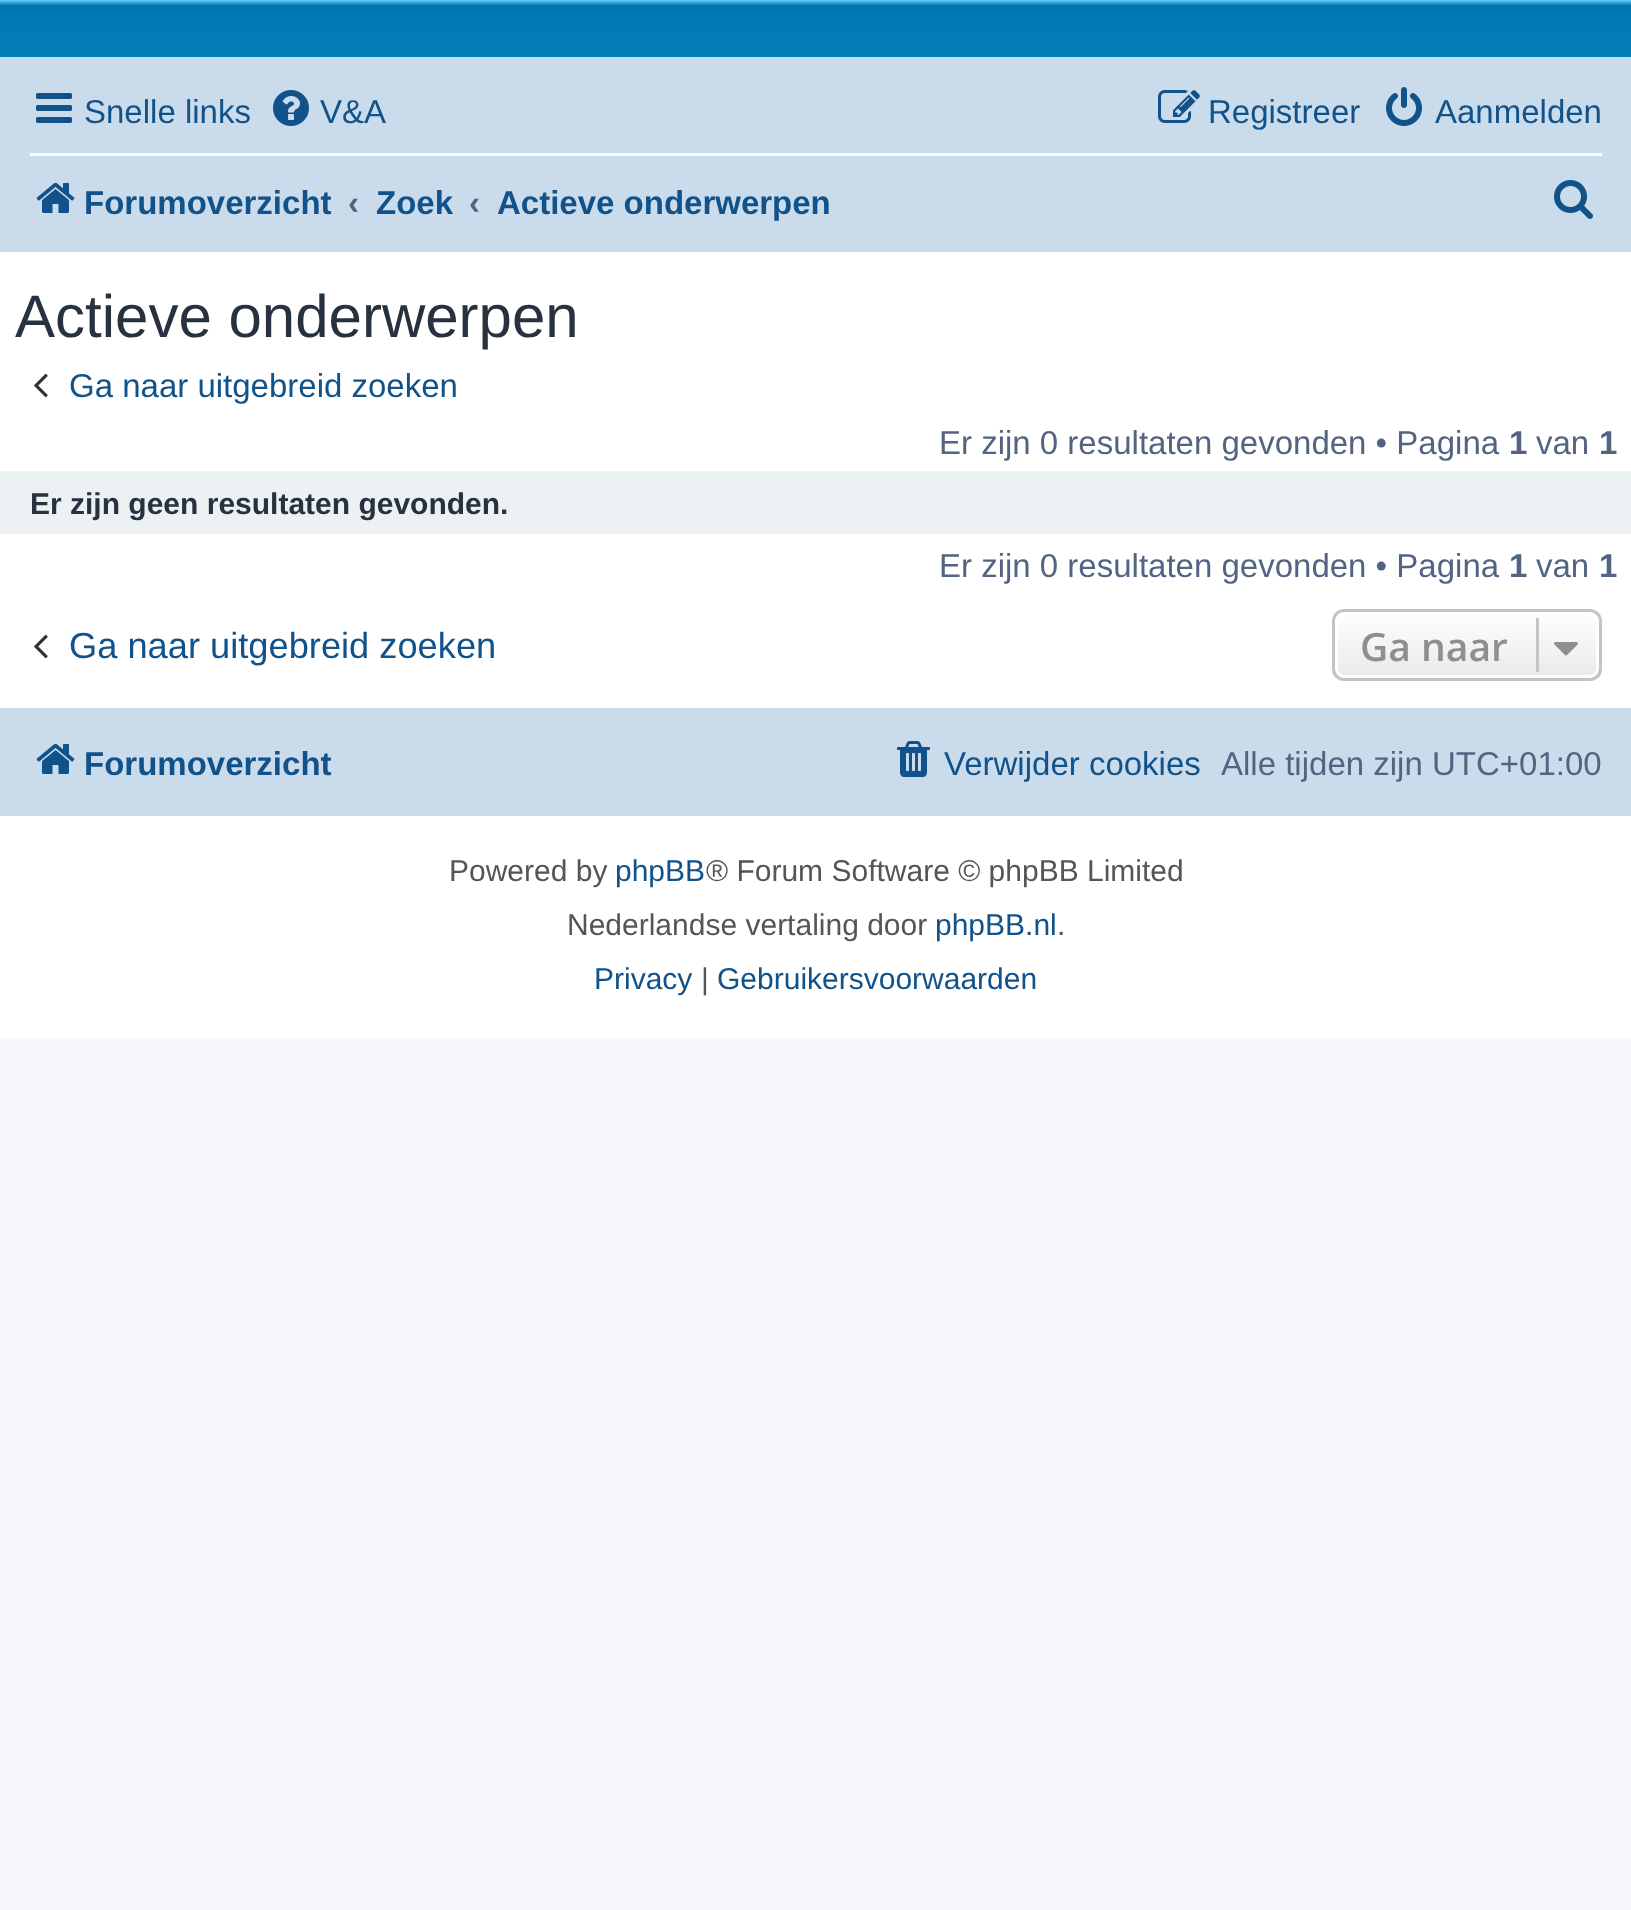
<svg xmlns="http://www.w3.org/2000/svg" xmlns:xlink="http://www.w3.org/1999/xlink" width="1631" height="1910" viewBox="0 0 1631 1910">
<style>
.cls-1{font:33px Liberation Sans;fill:#105289}
.cls-2{font:bold 33px Liberation Sans;fill:#105289}
.cls-3{font:bold 33px Liberation Sans;fill:#536482}
.cls-4{font:60px Liberation Sans;fill:#28313f}
.cls-5{font:33px Liberation Sans;fill:#536482}
.cls-6{font:bold 30px Liberation Sans;fill:#28313f}
.cls-7{font:36.25px Liberation Sans;fill:#105289}
.cls-8{font:600 39px Open Sans;fill:#8f8f8f}
.cls-9{font:30px Liberation Sans;fill:#555555}
.cls-10{font:30px Liberation Sans;fill:#105289}
</style>
<defs>
<linearGradient id="g1" gradientUnits="userSpaceOnUse" x1="816" y1="0" x2="816" y2="276"><stop offset="0" stop-color="#6aceff"/><stop offset="0.02" stop-color="#0076b1"/><stop offset="1" stop-color="#12a3eb"/></linearGradient>
<clipPath id="clip1"><rect x="1332" y="609" width="270" height="72" rx="12"/></clipPath>
<linearGradient id="g2" gradientUnits="userSpaceOnUse" x1="1467" y1="612" x2="1467" y2="678"><stop offset="0" stop-color="#ffffff"/><stop offset="1" stop-color="#e9e9e9"/></linearGradient>
</defs>
<rect width="100%" height="100%" fill="#f5f7fa"/>
<rect fill="#ffffff" x="0" y="252" width="1631" height="786"/>
<rect fill="url(#g1)" x="0" y="0" width="1631" height="57"/>
<rect fill="#cadceb" x="0" y="57" width="1631" height="195"/>
<image xlink:href="image0.png" x="36" y="93" width="36" height="30"/>
<image xlink:href="image1.png" x="273" y="90" width="36" height="36"/>
<image xlink:href="image2.png" x="1158" y="90" width="42" height="33"/>
<image xlink:href="image3.png" x="1386" y="87" width="36" height="39"/>
<rect fill="#ffffff" x="30" y="153" width="1572" height="3"/>
<image xlink:href="image4.png" x="36" y="182" width="39" height="31"/>
<image xlink:href="image5.png" x="1554" y="180" width="39" height="39"/>
<image xlink:href="image6.png" x="34" y="373" width="14" height="25"/>
<rect fill="#ecf1f3" x="0" y="471" width="1631" height="63"/>
<image xlink:href="image6.png" x="34" y="634" width="14" height="25"/>
<g clip-path="url(#clip1)">
<rect fill="url(#g2)" x="1332" y="612" width="270" height="66"/>
</g>
<rect fill="none" stroke="#ffffff" stroke-width="3" x="1336.5" y="613.5" width="261" height="63" rx="7.5"/>
<rect fill="none" stroke="#c7c3bf" stroke-width="3" x="1333.5" y="610.5" width="267" height="69" rx="10.5"/>
<rect fill="#c7c3bf" x="1536" y="618" width="3" height="54"/>
<image xlink:href="image7.png" x="1554" y="642" width="24" height="14"/>
<rect fill="#cadceb" x="0" y="708" width="1631" height="108"/>
<image xlink:href="image4.png" x="36" y="743" width="39" height="31"/>
<image xlink:href="image8.png" x="897" y="741" width="33" height="36"/>
<text class="cls-1" x="84" y="123">Snelle links</text>
<text class="cls-1" x="320" y="123">V&amp;A</text>
<text class="cls-1" x="1208" y="123">Registreer</text>
<text class="cls-1" x="1435" y="123">Aanmelden</text>
<text class="cls-2" x="84" y="214">Forumoverzicht</text>
<text class="cls-3" x="348" y="214">‹</text>
<text class="cls-2" x="376" y="214">Zoek</text>
<text class="cls-3" x="469" y="214">‹</text>
<text class="cls-2" x="497" y="214">Actieve onderwerpen</text>
<text class="cls-4" x="15" y="337">Actieve onderwerpen</text>
<text class="cls-1" x="69" y="397">Ga naar uitgebreid zoeken</text>
<text class="cls-5" x="939" y="454">Er zijn 0 resultaten gevonden • Pagina</text>
<text class="cls-3" x="1509" y="454">1</text>
<text class="cls-5" x="1536" y="454">van</text>
<text class="cls-3" x="1599" y="454">1</text>
<text class="cls-6" x="30" y="514">Er zijn geen resultaten gevonden.</text>
<text class="cls-5" x="939" y="577">Er zijn 0 resultaten gevonden • Pagina</text>
<text class="cls-3" x="1509" y="577">1</text>
<text class="cls-5" x="1536" y="577">van</text>
<text class="cls-3" x="1599" y="577">1</text>
<text class="cls-7" x="69" y="658">Ga naar uitgebreid zoeken</text>
<text class="cls-8" x="1360" y="661">Ga naar</text>
<text class="cls-2" x="84" y="775">Forumoverzicht</text>
<text class="cls-1" x="944" y="775">Verwijder cookies</text>
<text class="cls-5" x="1221" y="775">Alle tijden zijn UTC+01:00</text>
<text class="cls-9" x="449" y="881">Powered by</text>
<text class="cls-10" x="615" y="881">phpBB</text>
<text class="cls-9" x="706" y="881">® Forum Software © phpBB Limited</text>
<text class="cls-9" x="567" y="935">Nederlandse vertaling door</text>
<text class="cls-10" x="935" y="935">phpBB.nl</text>
<text class="cls-9" x="1057" y="935">.</text>
<text class="cls-10" x="594" y="989">Privacy</text>
<text class="cls-9" x="701" y="989">|</text>
<text class="cls-10" x="717" y="989">Gebruikersvoorwaarden</text>
</svg>
